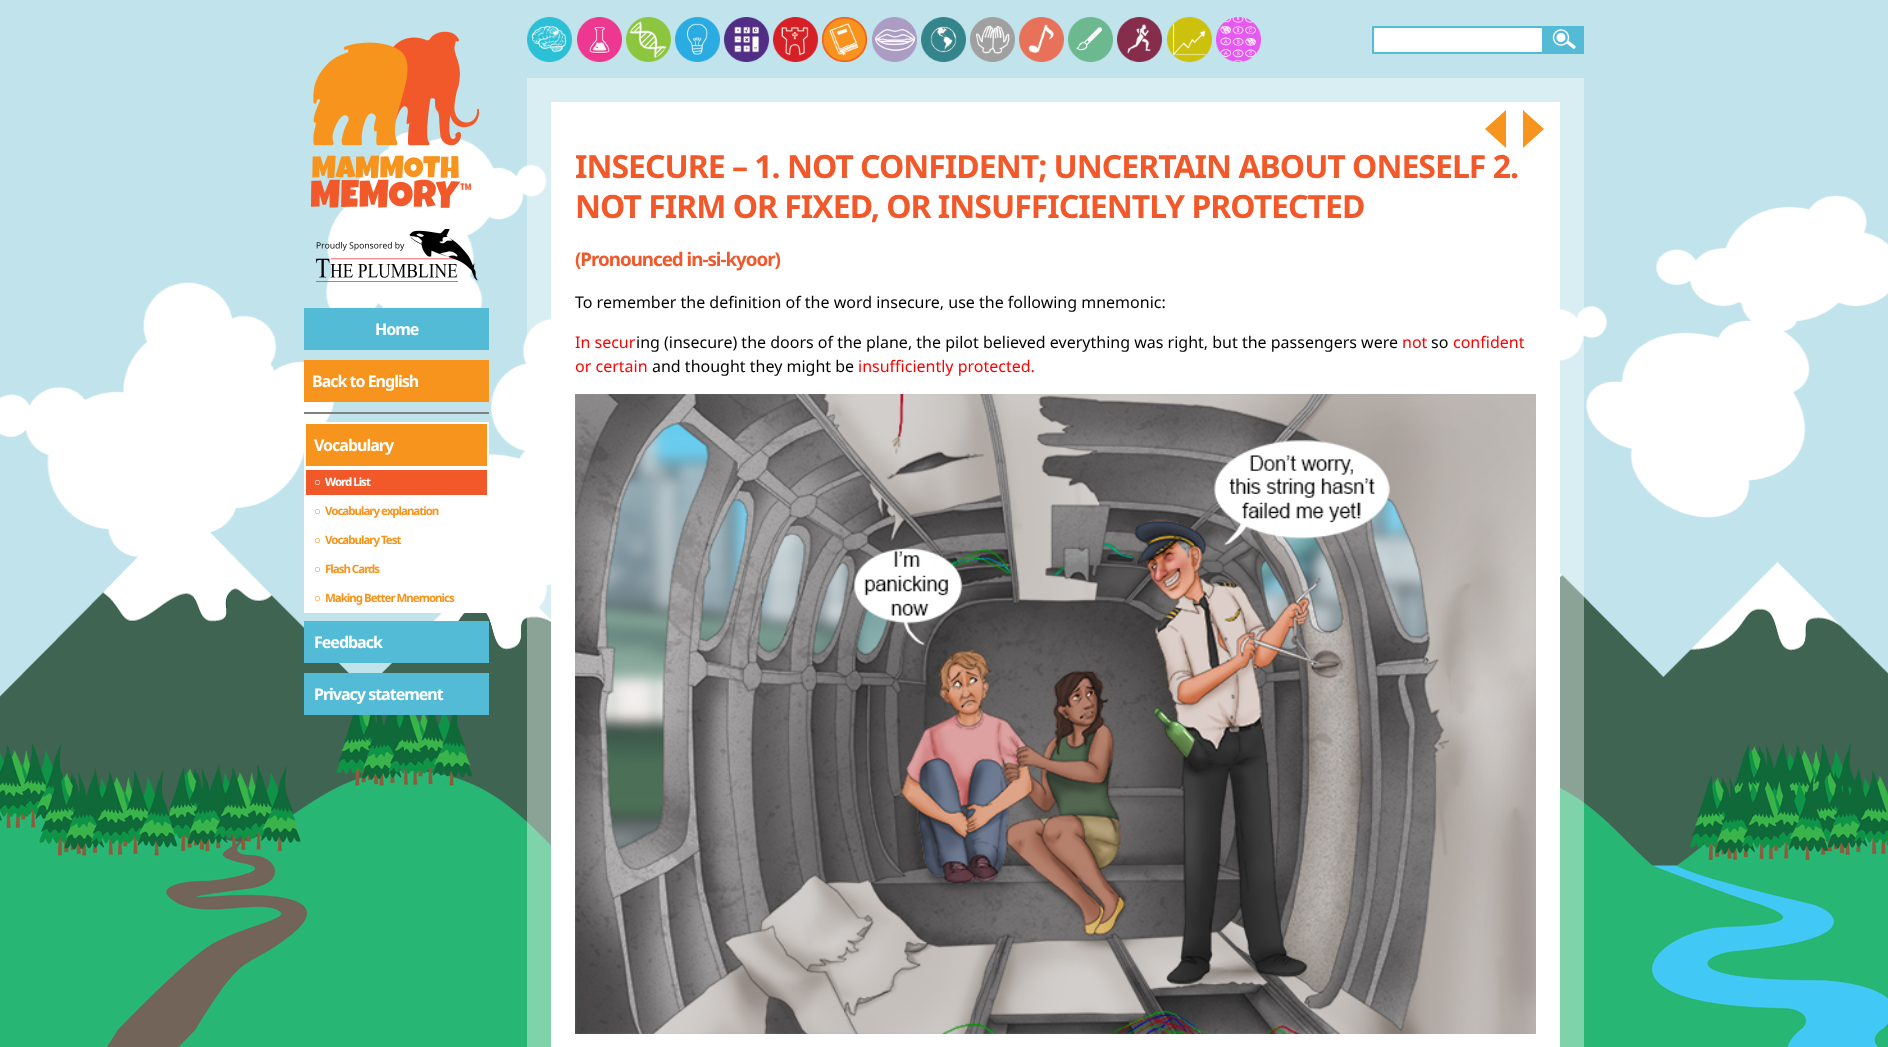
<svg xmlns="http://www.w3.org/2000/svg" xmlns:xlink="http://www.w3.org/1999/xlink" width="1888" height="1047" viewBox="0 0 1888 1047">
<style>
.cls-1{font:bold 32px Noto Sans;letter-spacing:-1px;fill:#f1592a}
.cls-2{font:bold 18.75px Noto Sans;letter-spacing:-1px;fill:#f1592a}
.cls-3{font:16px Noto Sans;fill:#000000}
.cls-4{font:16px Noto Sans;fill:#ff0000}
.cls-5{font:bold 16px Noto Sans;letter-spacing:-1px;fill:#ffffff}
.cls-6{font:bold 11.5px Liberation Sans;letter-spacing:-1px;fill:#ffffff}
.cls-7{font:bold 11.5px Noto Sans;letter-spacing:-1px;fill:#ffffff}
.cls-8{font:bold 11.5px Liberation Sans;letter-spacing:-1px;fill:#f7941e}
.cls-9{font:bold 11.5px Noto Sans;letter-spacing:-1px;fill:#f7941e}
</style>
<rect width="100%" height="100%" fill="#c0e3ec"/>
<image xlink:href="image0.png" x="0" y="131" width="1888" height="477"/>
<image xlink:href="image1.png" x="0" y="507" width="1888" height="258"/>
<rect fill="#3f6552" x="20" y="765" width="1868" height="101"/>
<image xlink:href="image2.png" x="0" y="715" width="1888" height="332"/>
<image xlink:href="image3.png" x="527" y="17" width="45" height="45"/>
<image xlink:href="image4.png" x="577" y="17" width="45" height="45"/>
<image xlink:href="image5.png" x="626" y="17" width="45" height="45"/>
<image xlink:href="image6.png" x="675" y="17" width="45" height="45"/>
<image xlink:href="image7.png" x="724" y="17" width="45" height="45"/>
<image xlink:href="image8.png" x="773" y="17" width="45" height="45"/>
<image xlink:href="image9.png" x="822" y="17" width="45" height="45"/>
<image xlink:href="image10.png" x="822" y="17" width="45" height="45"/>
<image xlink:href="image11.png" x="872" y="17" width="45" height="45"/>
<image xlink:href="image12.png" x="921" y="17" width="45" height="45"/>
<image xlink:href="image13.png" x="970" y="17" width="45" height="45"/>
<image xlink:href="image14.png" x="1019" y="17" width="45" height="45"/>
<image xlink:href="image15.png" x="1068" y="17" width="45" height="45"/>
<image xlink:href="image16.png" x="1117" y="17" width="45" height="45"/>
<image xlink:href="image17.png" x="1167" y="17" width="45" height="45"/>
<image xlink:href="image18.png" x="1216" y="17" width="45" height="45"/>
<rect fill="#ffffff" stroke="#54bbd7" stroke-width="2" x="1373" y="27" width="170" height="26"/>
<rect fill="#54bbd7" x="1544" y="26" width="40" height="28"/>
<image xlink:href="image19.png" x="1552" y="29" width="24" height="20"/>
<rect fill="#ffffff" fill-opacity="0.4" x="527" y="78" width="1057" height="969"/>
<rect fill="#ffffff" x="551" y="102" width="1009" height="945"/>
<path fill="#f7941e" d="M1506 110V148L1485 129ZM1523 148V110L1544 129Z"/>
<image xlink:href="image20.png" x="575" y="394" width="961" height="640"/>
<image xlink:href="image21.png" x="310" y="31" width="170" height="177"/>
<image xlink:href="image22.png" x="315" y="229" width="163" height="53"/>
<rect fill="#54bbd7" x="304" y="308" width="185" height="42"/>
<rect fill="#f7941e" x="304" y="360" width="185" height="42"/>
<rect fill="#808080" x="304" y="412" width="185" height="2"/>
<rect fill="#f7941e" stroke="#ffffff" stroke-width="2" x="305" y="423" width="183" height="44"/>
<rect fill="#ffffff" x="304" y="497" width="183" height="116"/>
<rect fill="#f1592a" stroke="#ffffff" stroke-width="2" x="305" y="469" width="183" height="27"/>
<rect fill="#54bbd7" x="304" y="621" width="185" height="42"/>
<rect fill="#54bbd7" x="304" y="673" width="185" height="42"/>
<text class="cls-1"><tspan x="575" y="178">INSECURE – 1. NOT CONFIDENT; UNCERTAIN ABOUT ONESELF 2.</tspan><tspan x="575" y="218">NOT FIRM OR FIXED, OR INSUFFICIENTLY PROTECTED</tspan></text>
<text class="cls-2" x="575" y="266">(Pronounced in-si-kyoor)</text>
<text class="cls-3" x="575" y="308">To remember the definition of the word insecure, use the following mnemonic:</text>
<text class="cls-4" x="575" y="348">In secur</text>
<text class="cls-3" x="636" y="348">ing (insecure) the doors of the plane, the pilot believed everything was right, but the passengers were</text>
<text class="cls-4" x="1402" y="348">not</text>
<text class="cls-3" x="1431" y="348">so</text>
<text class="cls-4" x="1453" y="348">confident</text>
<text class="cls-4" x="575" y="372">or certain</text>
<text class="cls-3" x="652" y="372">and thought they might be</text>
<text class="cls-4" x="858" y="372">insufficiently protected.</text>
<text class="cls-5" x="375" y="335">Home</text>
<text class="cls-5" x="312" y="387">Back to English</text>
<text class="cls-5" x="314" y="451">Vocabulary</text>
<text class="cls-6" x="314" y="486">○</text>
<text class="cls-7" x="325" y="486">Word List</text>
<text class="cls-8" x="314" y="515">○</text>
<text class="cls-9" x="325" y="515">Vocabulary explanation</text>
<text class="cls-8" x="314" y="544">○</text>
<text class="cls-9" x="325" y="544">Vocabulary Test</text>
<text class="cls-8" x="314" y="573">○</text>
<text class="cls-9" x="325" y="573">Flash Cards</text>
<text class="cls-8" x="314" y="602">○</text>
<text class="cls-9" x="325" y="602">Making Better Mnemonics</text>
<text class="cls-5" x="314" y="648">Feedback</text>
<text class="cls-5" x="314" y="700">Privacy statement</text>
</svg>
